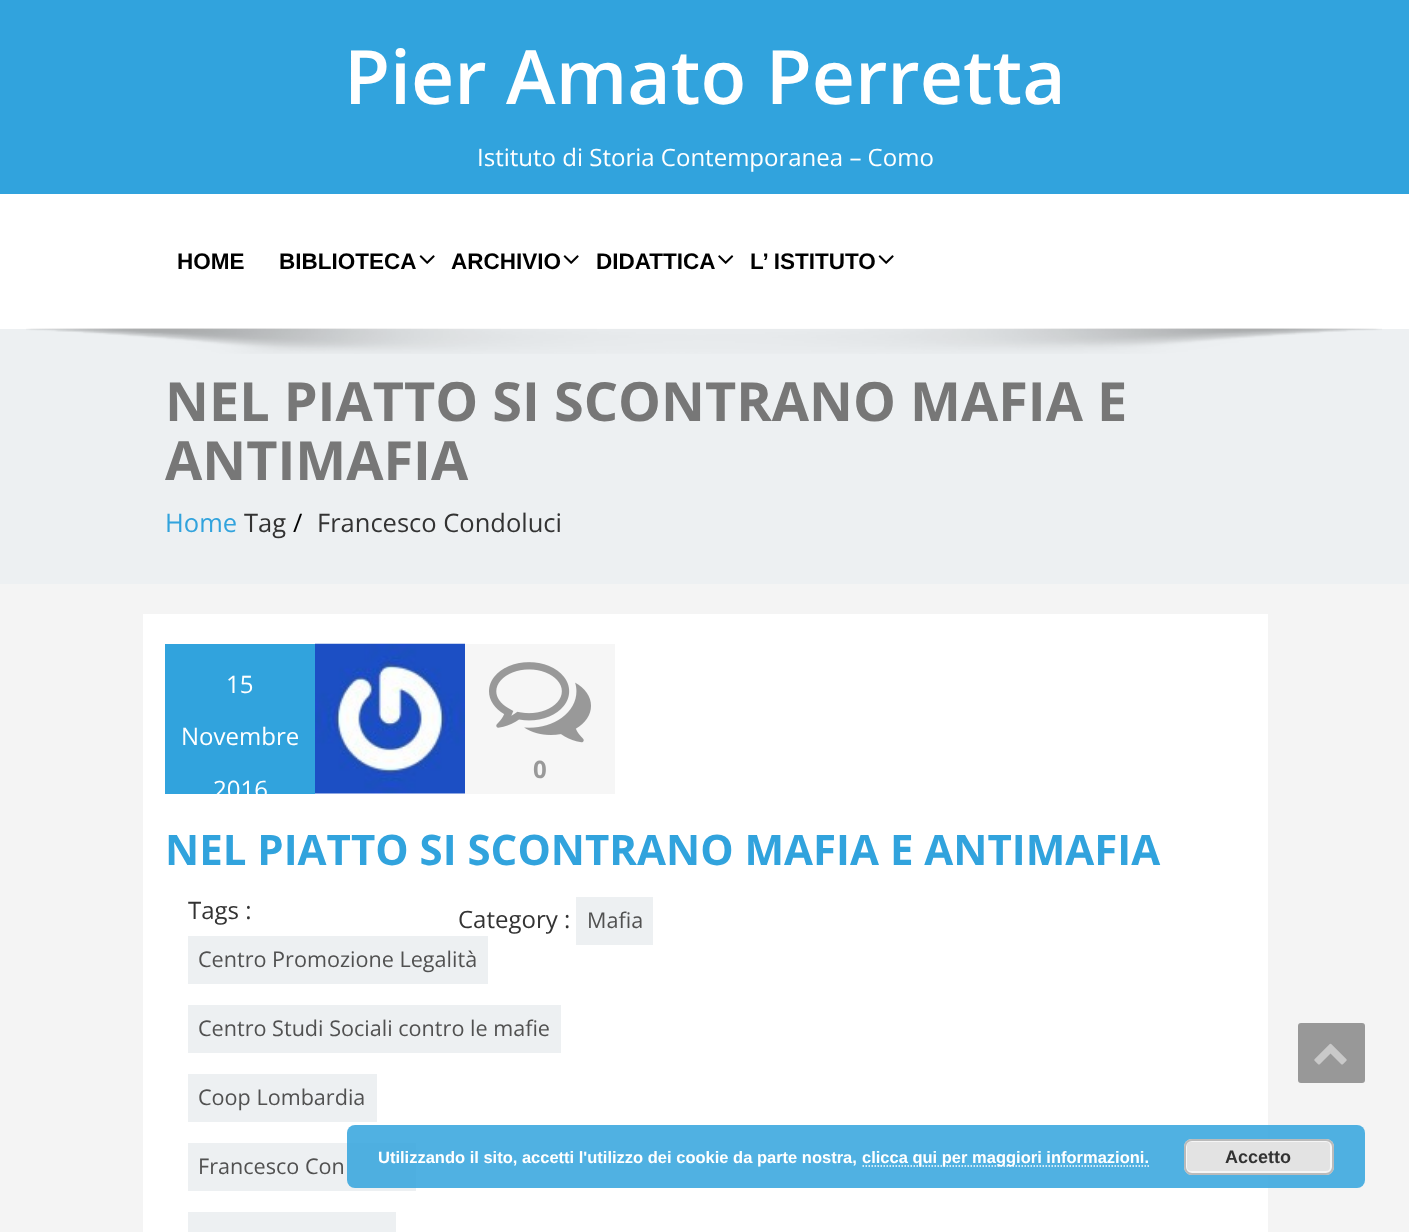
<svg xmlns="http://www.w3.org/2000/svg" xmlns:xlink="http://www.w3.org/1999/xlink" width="1409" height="1232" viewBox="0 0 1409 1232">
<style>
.cls-1{font:600 75px Open Sans;fill:#ffffff}
.cls-2{font:24px Open Sans;fill:#ffffff}
.cls-3{font:bold 22.5px Liberation Sans;fill:#000000}
.cls-4{font:bold 54px Open Sans;fill:#777777}
.cls-5{font:25.5px Open Sans;fill:#31a3dd}
.cls-6{font:25.5px Open Sans;fill:#333333}
.cls-7{font:25.5px Open Sans;fill:#000000}
.cls-8{font:bold 24px Open Sans;fill:#999999}
.cls-9{font:bold 42px Open Sans;fill:#31a3dd}
.cls-10{font:24px Open Sans;fill:#333333}
.cls-11{font:21.6px Open Sans;fill:#515151}
.cls-12{font:bold 16.5px Liberation Sans;fill:#ffffff}
.cls-13{font:bold 18px Liberation Sans;fill:#333333}
</style>
<rect width="100%" height="100%" fill="#f4f4f4"/>
<rect fill="#31a3dd" x="0" y="0" width="1409" height="194"/>
<rect fill="#ffffff" x="0" y="194" width="1409" height="135"/>
<image xlink:href="image0.png" x="419" y="255" width="16" height="9"/>
<image xlink:href="image0.png" x="563" y="255" width="16" height="9"/>
<image xlink:href="image1.png" x="718" y="255" width="16" height="9"/>
<image xlink:href="image0.png" x="878" y="255" width="16" height="9"/>
<rect fill="#edf0f2" x="0" y="329" width="1409" height="255"/>
<image xlink:href="image2.png" x="26" y="328" width="1356" height="26"/>
<rect fill="#ffffff" x="143" y="614" width="1125" height="618"/>
<rect fill="#31a3dd" x="165" y="644" width="150" height="150"/>
<image xlink:href="image3.png" x="315" y="643" width="150" height="151"/>
<rect fill="#f6f6f6" x="465" y="644" width="150" height="150"/>
<image xlink:href="image4.png" x="489" y="662" width="102" height="81"/>
<rect fill="#edf0f2" x="188" y="936" width="300" height="48"/>
<rect fill="#edf0f2" x="188" y="1005" width="373" height="48"/>
<rect fill="#edf0f2" x="188" y="1074" width="189" height="48"/>
<rect fill="#edf0f2" x="188" y="1143" width="228" height="48"/>
<rect fill="#edf0f2" x="188" y="1212" width="208" height="20"/>
<rect fill="#edf0f2" x="576" y="897" width="77" height="48"/>
<rect fill="#989898" x="1298" y="1023" width="67" height="60" rx="3"/>
<image xlink:href="image5.png" x="1314" y="1043" width="33" height="22"/>
<rect fill="#31a3dd" fill-opacity="0.85" x="347" y="1125" width="1018" height="63" rx="8"/>
<path fill="none" stroke="#ffffff" stroke-width="1.5" stroke-dasharray="1.5 1.5" d="M862.5 1166H1149"/>
<rect fill="#e3e3e3" x="1184" y="1139" width="150" height="36" rx="8"/>
<rect fill="none" stroke="#f6f6f6" stroke-width="2" x="1186" y="1141" width="145" height="31" rx="5"/>
<rect fill="none" stroke="#bbbbbb" stroke-width="2" x="1185" y="1140" width="148" height="34" rx="7"/>
<text class="cls-1" x="344" y="104">Pier Amato Perretta</text>
<text class="cls-2" x="477" y="166">Istituto di Storia Contemporanea – Como</text>
<text class="cls-3" x="177" y="269">HOME</text>
<text class="cls-3" x="279" y="269">BIBLIOTECA</text>
<text class="cls-3" x="451" y="269">ARCHIVIO</text>
<text class="cls-3" x="596" y="269">DIDATTICA</text>
<text class="cls-3" x="750" y="269">L’ ISTITUTO</text>
<text class="cls-4"><tspan x="165" y="421">NEL PIATTO SI SCONTRANO MAFIA E</tspan><tspan x="165" y="480">ANTIMAFIA</tspan></text>
<text class="cls-5" x="165" y="532">Home</text>
<text class="cls-6" x="244" y="532">Tag</text>
<text class="cls-7" x="293" y="532">/</text>
<text class="cls-6" x="317" y="532">Francesco Condoluci</text>
<text class="cls-2" x="226" y="693">15</text>
<text class="cls-2" x="181" y="745">Novembre</text>
<text class="cls-2" x="213" y="798">2016</text>
<text class="cls-8" x="533" y="778">0</text>
<text class="cls-9" x="165" y="865">NEL PIATTO SI SCONTRANO MAFIA E ANTIMAFIA</text>
<text class="cls-10" x="188" y="919">Tags :</text>
<text class="cls-11" x="198" y="967">Centro Promozione Legalità</text>
<text class="cls-11" x="198" y="1036">Centro Studi Sociali contro le mafie</text>
<text class="cls-11" x="198" y="1105">Coop Lombardia</text>
<text class="cls-11" x="198" y="1174">Francesco Con</text>
<text class="cls-10" x="458" y="928">Category :</text>
<text class="cls-11" x="587" y="928">Mafia</text>
<text class="cls-12" x="378" y="1163">Utilizzando il sito, accetti l'utilizzo dei cookie da parte nostra,</text>
<text class="cls-12" x="862" y="1163">clicca qui per maggiori informazioni.</text>
<text class="cls-13" x="1225" y="1163">Accetto</text>
</svg>
